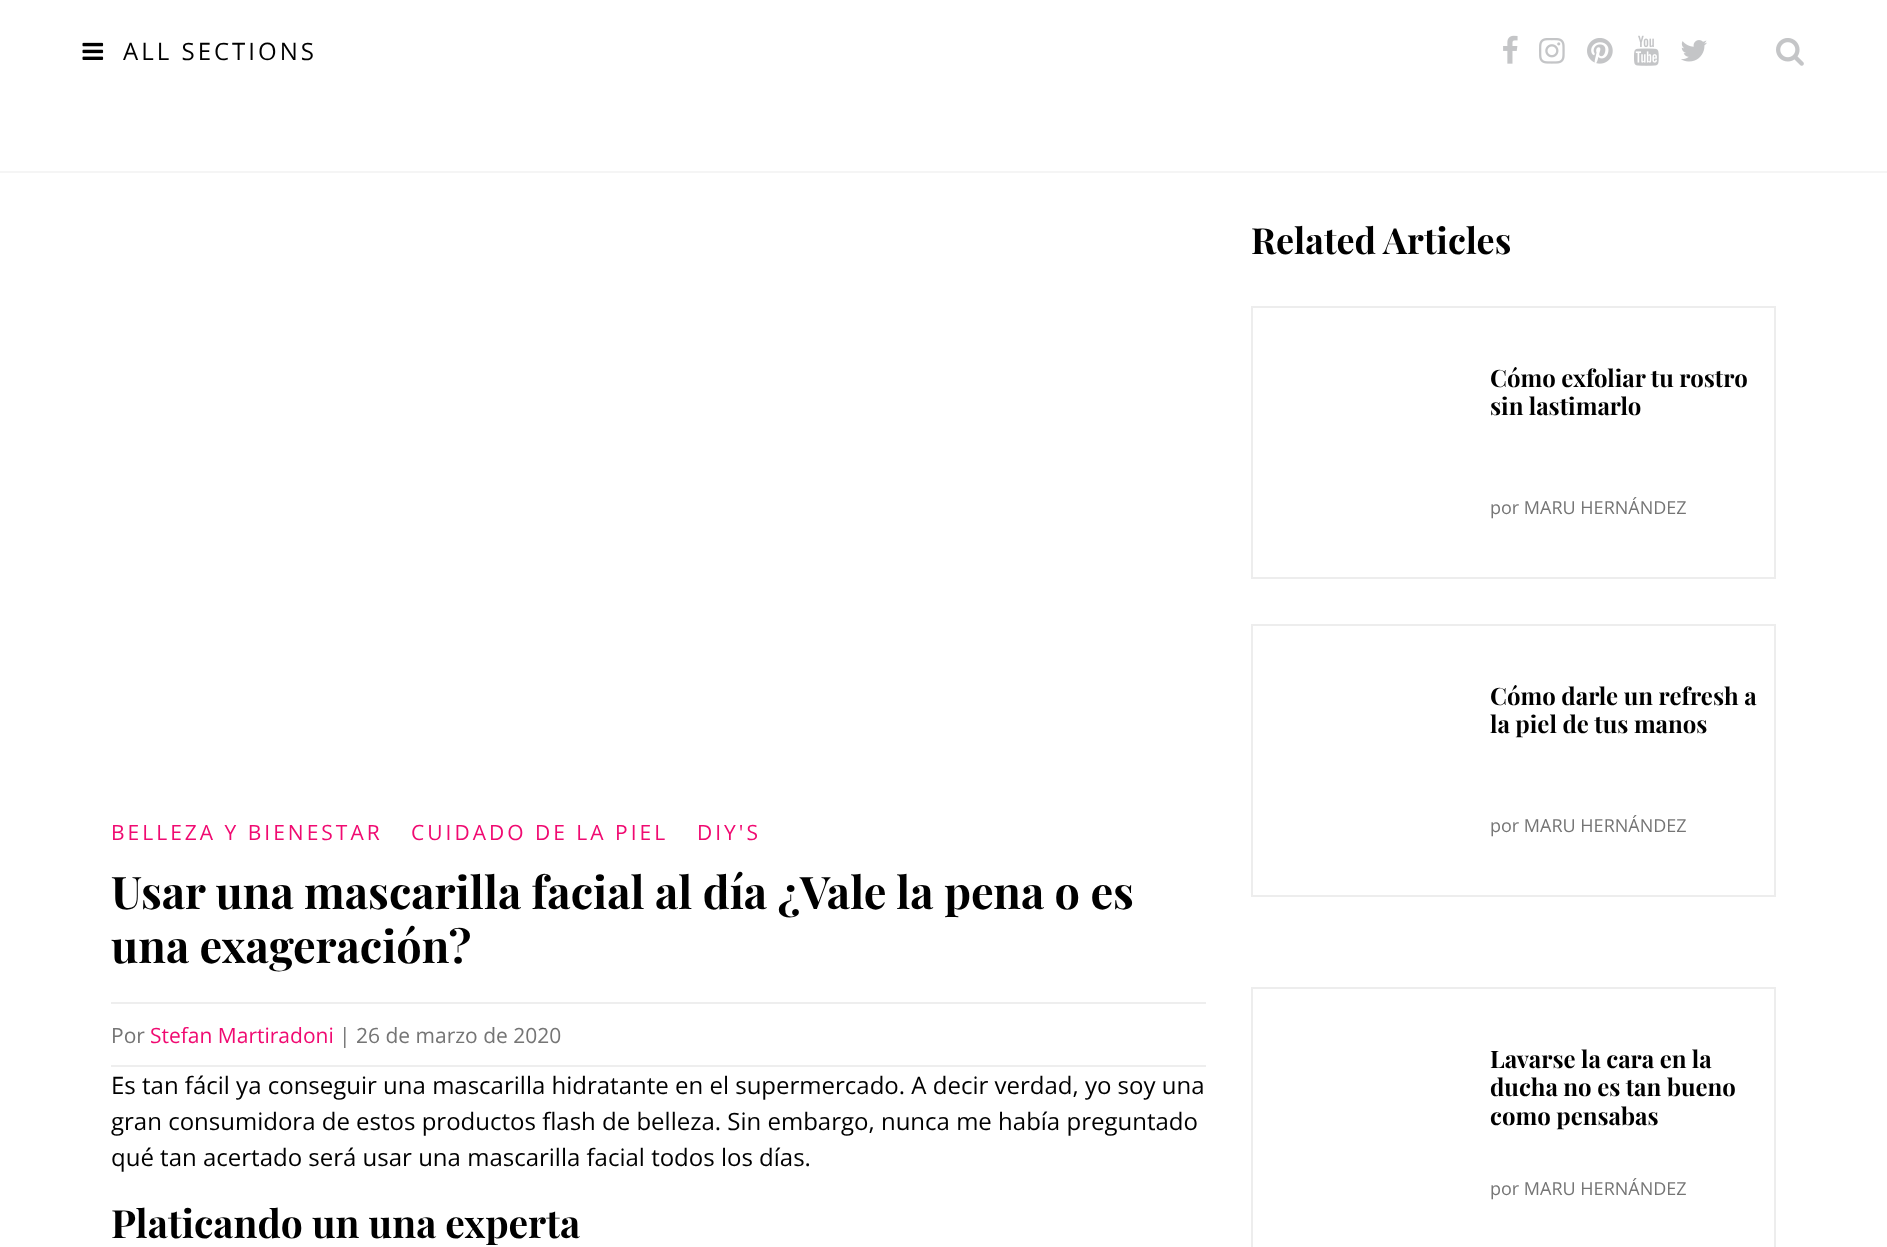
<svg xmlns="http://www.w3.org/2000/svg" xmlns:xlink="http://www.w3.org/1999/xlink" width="1887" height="1247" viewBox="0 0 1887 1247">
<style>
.cls-1{font:24px Open Sans;letter-spacing:3px;fill:#000000}
.cls-2{font:21px Open Sans;letter-spacing:3px;fill:#f00a71}
.cls-3{font:bold 45px Playfair Display;fill:#000000}
.cls-4{font:21px Open Sans;fill:#757575}
.cls-5{font:21px Open Sans;fill:#f00a71}
.cls-6{font:24px Open Sans;fill:#000000}
.cls-7{font:bold 39px Playfair Display;fill:#000000}
.cls-8{font:bold 36px Playfair Display;fill:#000000}
.cls-9{font:bold 24px Playfair Display;fill:#000000}
.cls-10{font:18px Open Sans;fill:#757575}
</style>
<rect width="100%" height="100%" fill="#ffffff"/>
<image xlink:href="image0.png" x="82" y="42" width="22" height="18"/>
<image xlink:href="image1.png" x="1503" y="35" width="15" height="29"/>
<image xlink:href="image2.png" x="1539" y="38" width="26" height="26"/>
<image xlink:href="image3.png" x="1587" y="38" width="26" height="26"/>
<image xlink:href="image4.png" x="1634" y="35" width="25" height="31"/>
<image xlink:href="image5.png" x="1681" y="40" width="26" height="22"/>
<image xlink:href="image6.png" x="1776" y="38" width="28" height="28"/>
<rect fill="#f5f5f5" x="0" y="171" width="1887" height="2"/>
<rect fill="#eeeeee" x="111" y="1002" width="1095" height="2"/>
<rect fill="#eeeeee" x="111" y="1065" width="1095" height="2"/>
<rect fill="none" stroke="#ededed" stroke-width="2" x="1252" y="307" width="523" height="271"/>
<rect fill="none" stroke="#ededed" stroke-width="2" x="1252" y="625" width="523" height="271"/>
<rect fill="none" stroke="#ededed" stroke-width="2" x="1252" y="988" width="523" height="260"/>
<text class="cls-1" x="123" y="60">ALL SECTIONS</text>
<text class="cls-2" x="111" y="840">BELLEZA Y BIENESTAR</text>
<text class="cls-2" x="411" y="840">CUIDADO DE LA PIEL</text>
<text class="cls-2" x="697" y="840">DIY'S</text>
<text class="cls-3"><tspan x="111" y="909">Usar una mascarilla facial al día ¿Vale la pena o es</tspan><tspan x="111" y="963">una exageración?</tspan></text>
<text class="cls-4" x="111" y="1043">Por</text>
<text class="cls-5" x="150" y="1043">Stefan Martiradoni</text>
<text class="cls-4" x="339" y="1043">| 26 de marzo de 2020</text>
<text class="cls-6"><tspan x="111" y="1094">Es tan fácil ya conseguir una mascarilla hidratante en el supermercado. A decir verdad, yo soy una</tspan><tspan x="111" y="1130">gran consumidora de estos productos flash de belleza. Sin embargo, nunca me había preguntado</tspan><tspan x="111" y="1166">qué tan acertado será usar una mascarilla facial todos los días.</tspan></text>
<text class="cls-7" x="111" y="1238">Platicando un una experta</text>
<text class="cls-8" x="1251" y="254">Related Articles</text>
<text class="cls-9"><tspan x="1490" y="387">Cómo exfoliar tu rostro</tspan><tspan x="1490" y="415">sin lastimarlo</tspan></text>
<text class="cls-10" x="1490" y="514">por MARU HERNÁNDEZ</text>
<text class="cls-9"><tspan x="1490" y="705">Cómo darle un refresh a</tspan><tspan x="1490" y="733">la piel de tus manos</tspan></text>
<text class="cls-10" x="1490" y="832">por MARU HERNÁNDEZ</text>
<text class="cls-9"><tspan x="1490" y="1068">Lavarse la cara en la</tspan><tspan x="1490" y="1096">ducha no es tan bueno</tspan><tspan x="1490" y="1125">como pensabas</tspan></text>
<text class="cls-10" x="1490" y="1195">por MARU HERNÁNDEZ</text>
</svg>
